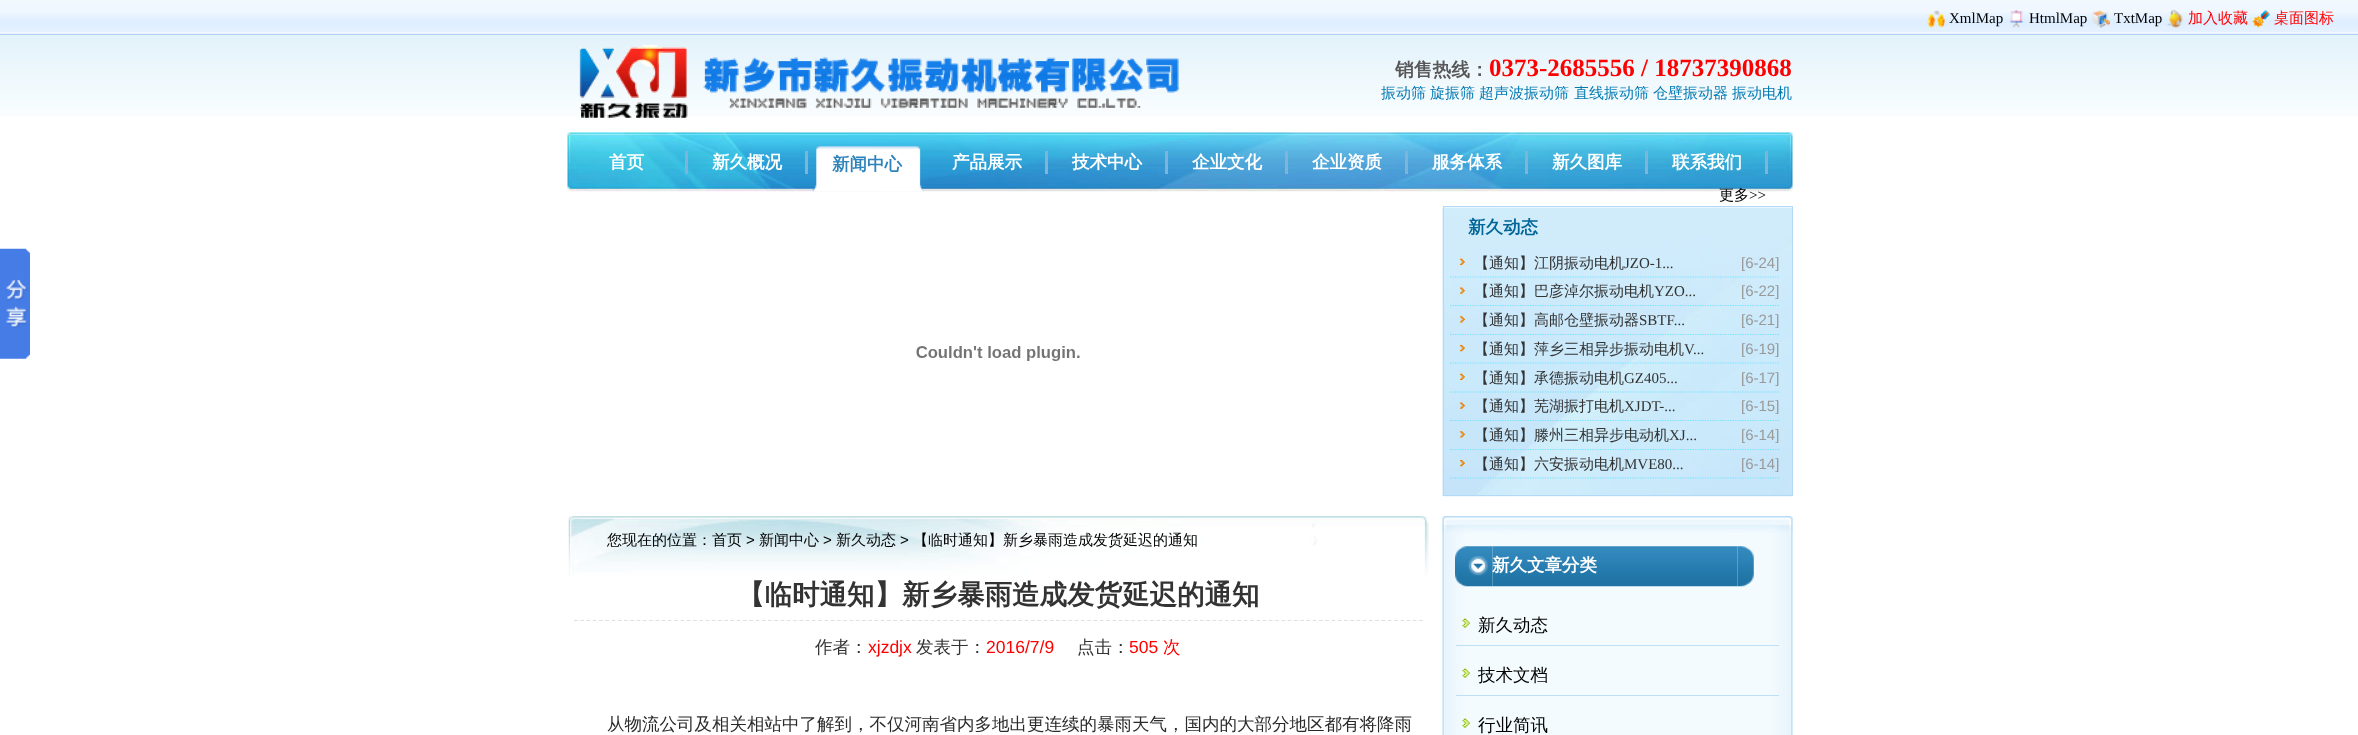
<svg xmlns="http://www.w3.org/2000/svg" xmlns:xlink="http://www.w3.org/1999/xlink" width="2358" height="735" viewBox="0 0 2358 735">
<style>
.cls-1{font:15px Liberation Serif;fill:#000000}
.cls-2{font:500 15px WenQuanYi Zen Hei;fill:#ff0000}
.cls-3{font:bold 18.75px WenQuanYi Zen Hei;fill:#595858}
.cls-4{font:bold 25px Liberation Serif;fill:#ff0000}
.cls-5{font:500 15px WenQuanYi Zen Hei;fill:#0279b3}
.cls-6{font:bold 17.5px WenQuanYi Zen Hei;fill:#ffffff}
.cls-7{font:bold 17.5px WenQuanYi Zen Hei;fill:#2f83bb}
.cls-8{font:500 15px WenQuanYi Zen Hei;fill:#000000}
.cls-9{font:bold 17.5px WenQuanYi Zen Hei;fill:#006699}
.cls-10{font:500 15px WenQuanYi Zen Hei;fill:#333333}
.cls-11{font:15px Liberation Serif;fill:#333333}
.cls-12{font:15px Liberation Sans;fill:#999999}
.cls-13{font:15px Liberation Sans;fill:#000000}
.cls-14{font:bold 27.5px WenQuanYi Zen Hei;fill:#333333}
.cls-15{font:500 17.5px WenQuanYi Zen Hei;fill:#333333}
.cls-16{font:17.5px Liberation Sans;fill:#ff0000}
.cls-17{font:500 17.5px WenQuanYi Zen Hei;fill:#ff0000}
.cls-18{font:500 17.5px WenQuanYi Zen Hei;fill:#2a2a2a}
.cls-19{font:500 17.5px WenQuanYi Zen Hei;fill:#000000}
</style>
<rect width="100%" height="100%" fill="#ffffff"/>
<image xlink:href="image0.png" x="0" y="35" width="2358" height="81"/>
<image xlink:href="image1.png" x="0" y="0" width="2358" height="35"/>
<image xlink:href="image2.png" x="1927" y="10" width="18" height="18"/>
<image xlink:href="image3.png" x="2010" y="10" width="13" height="18"/>
<image xlink:href="image4.png" x="2092" y="10" width="18" height="18"/>
<image xlink:href="image5.png" x="2167" y="10" width="16" height="18"/>
<image xlink:href="image6.png" x="2252" y="10" width="18" height="18"/>
<image xlink:href="image7.png" x="579" y="45" width="600" height="73"/>
<image xlink:href="image8.png" x="579" y="45" width="600" height="73"/>
<image xlink:href="image9.png" x="567" y="132" width="1226" height="60"/>
<rect fill="#7cb4da" x="685" y="151" width="3" height="23"/>
<rect fill="#7cb4da" x="805" y="151" width="3" height="23"/>
<image xlink:href="image10.png" x="812" y="146" width="112" height="46"/>
<rect fill="#7cb4da" x="1045" y="151" width="3" height="23"/>
<rect fill="#7cb4da" x="1165" y="151" width="3" height="23"/>
<rect fill="#7cb4da" x="1285" y="151" width="3" height="23"/>
<rect fill="#7cb4da" x="1405" y="151" width="3" height="23"/>
<rect fill="#7cb4da" x="1525" y="151" width="3" height="23"/>
<rect fill="#7cb4da" x="1645" y="151" width="3" height="23"/>
<rect fill="#7cb4da" x="1765" y="151" width="3" height="23"/>
<image xlink:href="image11.png" x="0" y="248" width="30" height="111"/>
<image xlink:href="image12.png" x="916" y="346" width="164" height="15"/>
<image xlink:href="image13.png" x="1442" y="207" width="351" height="290"/>
<rect fill="none" stroke="#b2d9f6" x="1443.5" y="206.5" width="349" height="289"/>
<image xlink:href="image14.png" x="1460" y="258" width="5" height="7"/>
<path fill="none" stroke="#70e1ff" stroke-width="1.2" stroke-dasharray="1.25 1.25" d="M1450 277H1779"/>
<image xlink:href="image15.png" x="1460" y="287" width="5" height="7"/>
<path fill="none" stroke="#70e1ff" stroke-width="1.2" stroke-dasharray="1.25 1.25" d="M1450 305.5H1779"/>
<image xlink:href="image16.png" x="1460" y="316" width="5" height="7"/>
<path fill="none" stroke="#70e1ff" stroke-width="1.2" stroke-dasharray="1.25 1.25" d="M1450 334.5H1779"/>
<image xlink:href="image17.png" x="1460" y="345" width="5" height="7"/>
<path fill="none" stroke="#70e1ff" stroke-width="1.2" stroke-dasharray="1.25 1.25" d="M1450 363H1779"/>
<image xlink:href="image18.png" x="1460" y="373" width="5" height="7"/>
<path fill="none" stroke="#70e1ff" stroke-width="1.2" stroke-dasharray="1.25 1.25" d="M1450 392H1779"/>
<image xlink:href="image19.png" x="1460" y="402" width="5" height="7"/>
<path fill="none" stroke="#70e1ff" stroke-width="1.2" stroke-dasharray="1.25 1.25" d="M1450 420.5H1779"/>
<image xlink:href="image20.png" x="1460" y="431" width="5" height="7"/>
<path fill="none" stroke="#70e1ff" stroke-width="1.2" stroke-dasharray="1.25 1.25" d="M1450 449.5H1779"/>
<image xlink:href="image21.png" x="1460" y="460" width="5" height="7"/>
<path fill="none" stroke="#70e1ff" stroke-width="1.2" stroke-dasharray="1.25 1.25" d="M1450 478H1779"/>
<image xlink:href="image22.png" x="568" y="516" width="861" height="60"/>
<path fill="none" stroke="#e0e0e0" stroke-width="1.2" stroke-dasharray="3.75 2.51" d="M574 620.5H1424"/>
<image xlink:href="image23.png" x="1442" y="516" width="351" height="18"/>
<image xlink:href="image24.png" x="1442" y="516" width="351" height="18"/>
<image xlink:href="image25.png" x="1442" y="533" width="351" height="202"/>
<image xlink:href="image26.png" x="1455" y="546" width="38" height="41"/>
<image xlink:href="image27.png" x="1492" y="546" width="246" height="41"/>
<image xlink:href="image28.png" x="1737" y="546" width="17" height="41"/>
<image xlink:href="image29.png" x="1462" y="618" width="8" height="10"/>
<rect fill="#bde0f6" x="1456" y="645" width="323" height="1"/>
<image xlink:href="image29.png" x="1462" y="668" width="8" height="10"/>
<rect fill="#bde0f6" x="1456" y="695" width="323" height="1"/>
<image xlink:href="image29.png" x="1462" y="718" width="8" height="10"/>
<text class="cls-1" x="1949" y="23">XmlMap</text>
<text class="cls-1" x="2029" y="23">HtmlMap</text>
<text class="cls-1" x="2114" y="23">TxtMap</text>
<text class="cls-2" x="2188" y="23">加入收藏</text>
<text class="cls-2" x="2274" y="23">桌面图标</text>
<text class="cls-3" x="1395" y="76">销售热线：</text>
<text class="cls-4" x="1489" y="76">0373-2685556 / 18737390868</text>
<text class="cls-5" x="1381" y="98">振动筛</text>
<text class="cls-5" x="1430" y="98">旋振筛</text>
<text class="cls-5" x="1479" y="98">超声波振动筛</text>
<text class="cls-5" x="1574" y="98">直线振动筛</text>
<text class="cls-5" x="1653" y="98">仓壁振动器</text>
<text class="cls-5" x="1732" y="98">振动电机</text>
<text class="cls-6" x="609" y="168">首页</text>
<text class="cls-6" x="712" y="168">新久概况</text>
<text class="cls-7" x="832" y="170">新闻中心</text>
<text class="cls-6" x="952" y="168">产品展示</text>
<text class="cls-6" x="1072" y="168">技术中心</text>
<text class="cls-6" x="1192" y="168">企业文化</text>
<text class="cls-6" x="1312" y="168">企业资质</text>
<text class="cls-6" x="1432" y="168">服务体系</text>
<text class="cls-6" x="1552" y="168">新久图库</text>
<text class="cls-6" x="1672" y="168">联系我们</text>
<text class="cls-8" x="1719" y="200">更多</text>
<text class="cls-1" x="1749" y="200">&gt;&gt;</text>
<text class="cls-9" x="1468" y="233">新久动态</text>
<text class="cls-10" x="1474" y="268">【通知】江阴振动电机</text>
<text class="cls-11" x="1624" y="268">JZO-1...</text>
<text class="cls-12" x="1741" y="268">[6-24]</text>
<text class="cls-10" x="1474" y="296">【通知】巴彦淖尔振动电机</text>
<text class="cls-11" x="1654" y="296">YZO...</text>
<text class="cls-12" x="1741" y="296">[6-22]</text>
<text class="cls-10" x="1474" y="325">【通知】高邮仓壁振动器</text>
<text class="cls-11" x="1639" y="325">SBTF...</text>
<text class="cls-12" x="1741" y="325">[6-21]</text>
<text class="cls-10" x="1474" y="354">【通知】萍乡三相异步振动电机</text>
<text class="cls-11" x="1684" y="354">V...</text>
<text class="cls-12" x="1741" y="354">[6-19]</text>
<text class="cls-10" x="1474" y="383">【通知】承德振动电机</text>
<text class="cls-11" x="1624" y="383">GZ405...</text>
<text class="cls-12" x="1741" y="383">[6-17]</text>
<text class="cls-10" x="1474" y="411">【通知】芜湖振打电机</text>
<text class="cls-11" x="1624" y="411">XJDT-...</text>
<text class="cls-12" x="1741" y="411">[6-15]</text>
<text class="cls-10" x="1474" y="440">【通知】滕州三相异步电动机</text>
<text class="cls-11" x="1669" y="440">XJ...</text>
<text class="cls-12" x="1741" y="440">[6-14]</text>
<text class="cls-10" x="1474" y="469">【通知】六安振动电机</text>
<text class="cls-11" x="1624" y="469">MVE80...</text>
<text class="cls-12" x="1741" y="469">[6-14]</text>
<text class="cls-8" x="607" y="545">您现在的位置：首页</text>
<text class="cls-13" x="746" y="545">&gt;</text>
<text class="cls-8" x="759" y="545">新闻中心</text>
<text class="cls-13" x="823" y="545">&gt;</text>
<text class="cls-8" x="836" y="545">新久动态</text>
<text class="cls-13" x="900" y="545">&gt;</text>
<text class="cls-8" x="913" y="545">【临时通知】新乡暴雨造成发货延迟的通知</text>
<text class="cls-14" x="737" y="604">【临时通知】新乡暴雨造成发货延迟的通知</text>
<text class="cls-15" x="815" y="653">作者：</text>
<text class="cls-16" x="868" y="653">xjzdjx</text>
<text class="cls-15" x="916" y="653">发表于：</text>
<text class="cls-16" x="986" y="653">2016/7/9</text>
<text class="cls-15" x="1077" y="653">点击：</text>
<text class="cls-16" x="1129" y="653">505</text>
<text class="cls-17" x="1163" y="653">次</text>
<text class="cls-18" x="607" y="730">从物流公司及相关相站中了解到，不仅河南省内多地出更连续的暴雨天气，国内的大部分地区都有将降雨</text>
<text class="cls-6" x="1492" y="571">新久文章分类</text>
<text class="cls-19" x="1478" y="631">新久动态</text>
<text class="cls-19" x="1478" y="681">技术文档</text>
<text class="cls-19" x="1478" y="731">行业简讯</text>
</svg>
